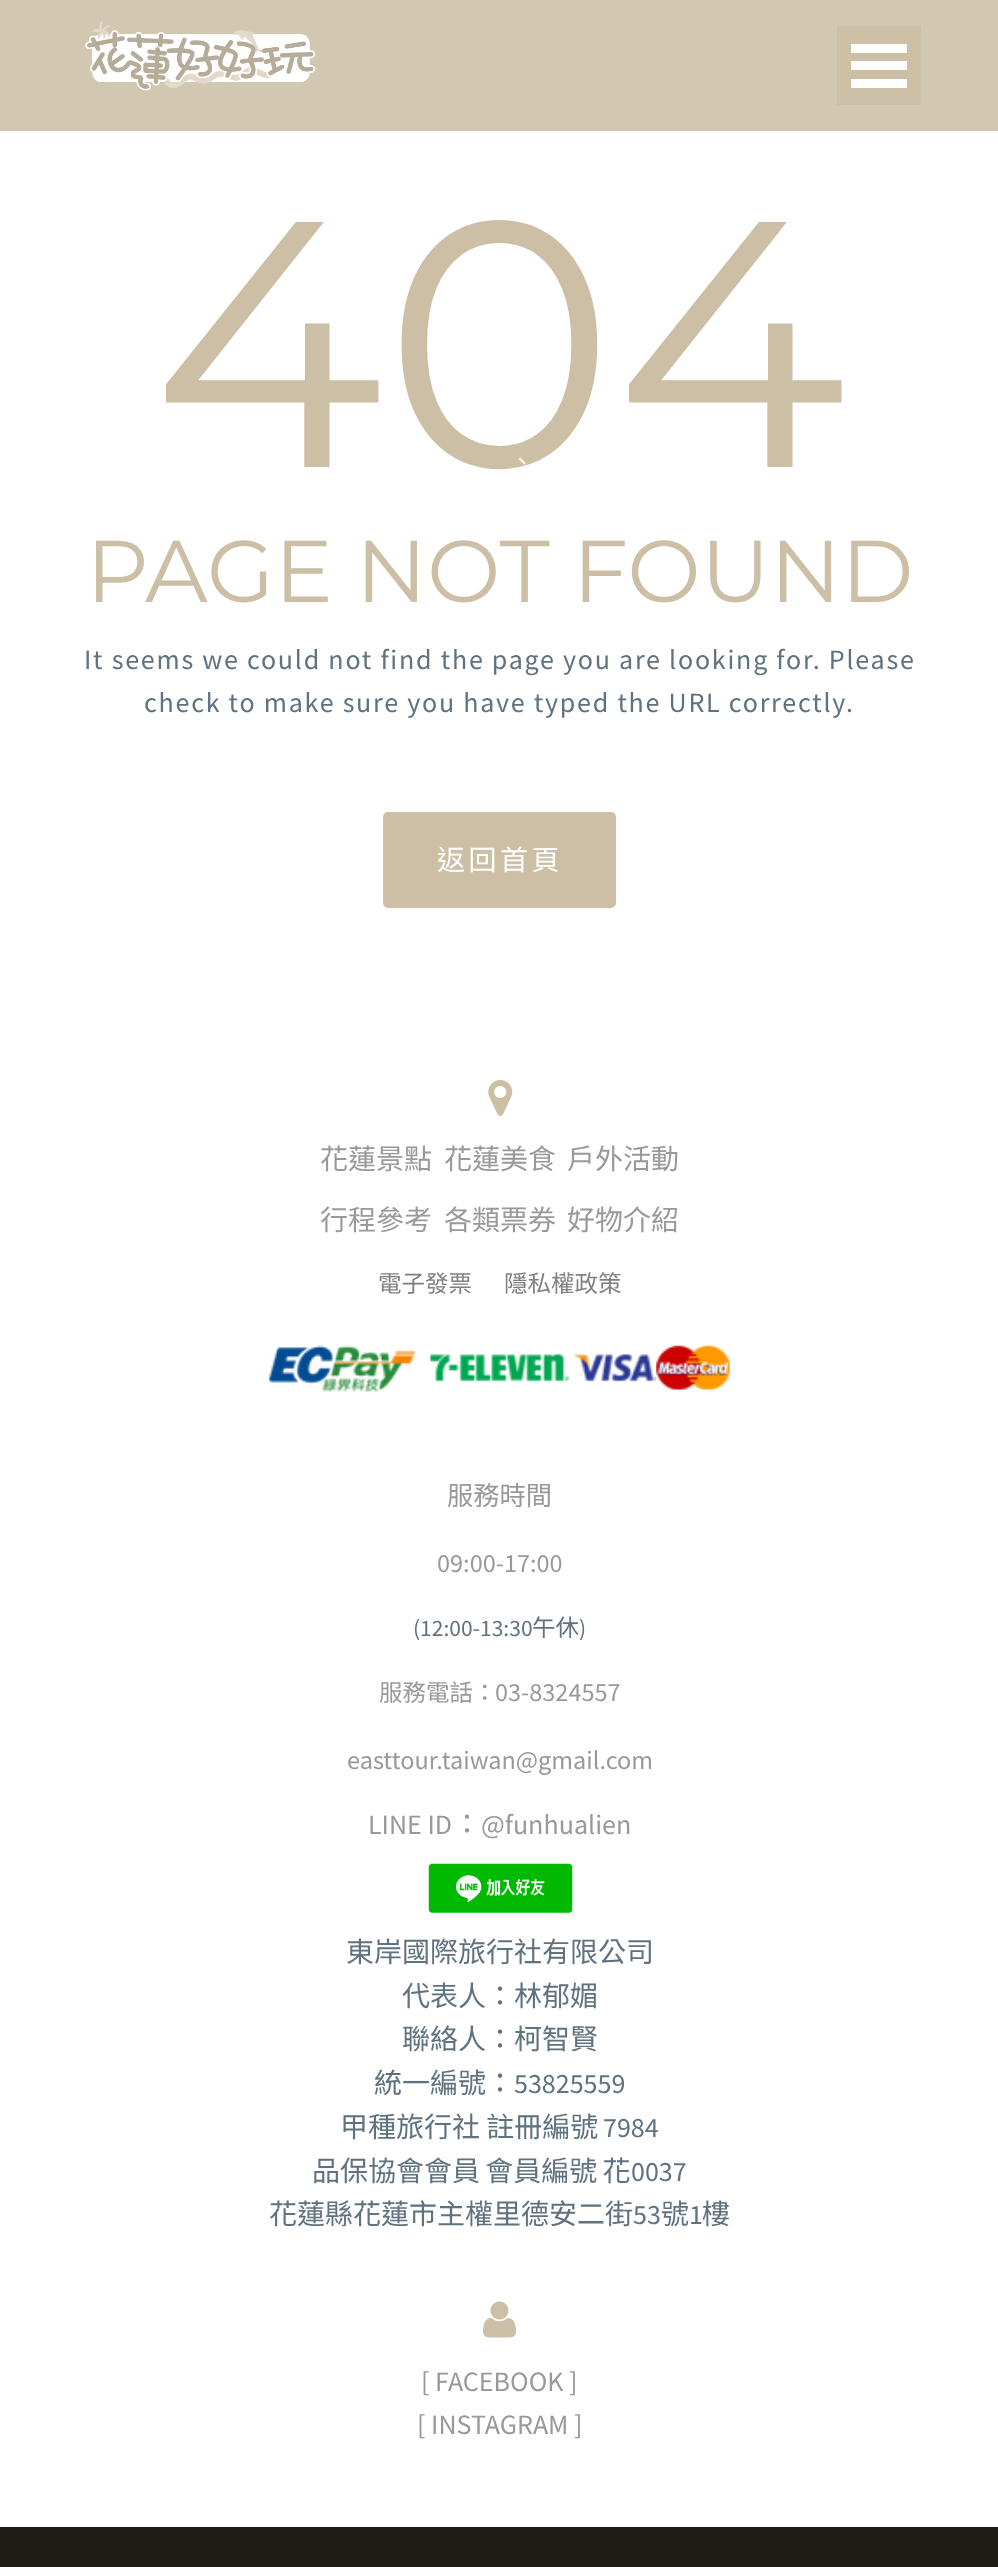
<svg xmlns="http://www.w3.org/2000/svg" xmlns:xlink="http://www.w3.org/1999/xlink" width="998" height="2567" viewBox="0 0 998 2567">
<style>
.cls-1{font:350px Montserrat;fill:#ccbfa6}
.cls-2{font:87.5px Montserrat;fill:#ccbfa6}
.cls-3{font:28px Source Sans Pro;letter-spacing:1.75px;fill:#5f727f}
.cls-4{font:28px Noto Sans CJK TC;letter-spacing:3.5px;fill:#ffffff}
.cls-5{font:26.25px Noto Sans CJK TC;fill:#f3f0eb}
.cls-6{font:28px Noto Sans CJK TC;fill:#999999}
.cls-7{font:23.5px Noto Sans CJK TC;fill:#808080}
.cls-8{font:26.25px Noto Sans CJK TC;fill:#999999}
.cls-9{font:26.25px Source Sans Pro;fill:#999999}
.cls-10{font:23.5px Source Sans Pro;fill:#5f727f}
.cls-11{font:23.5px Noto Sans CJK TC;fill:#5f727f}
.cls-12{font:23.5px Noto Sans CJK TC;fill:#999999}
.cls-13{font:28px Source Sans Pro;fill:#999999}
.cls-14{font:28px Noto Sans CJK TC;fill:#5f727f}
.cls-15{font:28px Source Sans Pro;fill:#5f727f}
</style>
<rect width="100%" height="100%" fill="#ffffff"/>
<rect fill="#ccbfa6" x="383" y="812" width="233" height="96" rx="5"/>
<rect fill="#d2c7b1" x="0" y="0" width="998" height="131"/>
<image xlink:href="image0.png" x="85" y="21" width="230" height="70"/>
<rect fill="#ccbfa6" x="837" y="26" width="84" height="79"/>
<rect fill="#ffffff" x="851" y="79" width="56" height="9"/>
<rect fill="#ffffff" x="851" y="61" width="56" height="9"/>
<rect fill="#ffffff" x="851" y="44" width="56" height="9"/>
<image xlink:href="image1.png" x="488" y="1080" width="25" height="36"/>
<image xlink:href="image2.png" x="269" y="1345" width="146" height="47"/>
<image xlink:href="image3.png" x="430" y="1354" width="139" height="28"/>
<image xlink:href="image4.png" x="574" y="1354" width="83" height="28"/>
<image xlink:href="image5.png" x="656" y="1345" width="74" height="45"/>
<image xlink:href="image6.png" x="428" y="1863" width="145" height="50"/>
<image xlink:href="image7.png" x="483" y="2301" width="33" height="37"/>
<rect fill="#1f1c15" x="0" y="2527" width="998" height="40"/>
<text class="cls-1" x="152" y="467">404</text>
<text class="cls-2" x="86" y="602">PAGE NOT FOUND</text>
<text class="cls-3" x="84" y="669">It seems we could not find the page you are looking for. Please</text>
<text class="cls-3" x="144" y="712">check to make sure you have typed the URL correctly.</text>
<text class="cls-4" x="437" y="870">返回首頁</text>
<text class="cls-5" x="509" y="471">、</text>
<text class="cls-6" x="320" y="1169">花蓮景點</text>
<text class="cls-6" x="444" y="1169">花蓮美食</text>
<text class="cls-6" x="567" y="1169">戶外活動</text>
<text class="cls-6" x="320" y="1230">行程參考</text>
<text class="cls-6" x="444" y="1230">各類票券</text>
<text class="cls-6" x="567" y="1230">好物介紹</text>
<text class="cls-7" x="378" y="1292">電子發票</text>
<text class="cls-7" x="504" y="1292">隱私權政策</text>
<text class="cls-8" x="447" y="1505">服務時間</text>
<text class="cls-9" x="437" y="1572">09:00-17:00</text>
<text class="cls-10" x="413" y="1636">(12:00-13:30</text>
<text class="cls-11" x="532" y="1636">午休</text>
<text class="cls-10" x="579" y="1636">)</text>
<text class="cls-12" x="379" y="1701">服務電話：</text>
<text class="cls-9" x="495" y="1701">03-8324557</text>
<text class="cls-9" x="347" y="1769">easttour.taiwan@gmail.com</text>
<text class="cls-13" x="368" y="1834">LINE ID</text>
<text class="cls-6" x="453" y="1834">：</text>
<text class="cls-13" x="481" y="1834">@funhualien</text>
<text class="cls-14" x="346" y="1962">東岸國際旅行社有限公司</text>
<text class="cls-14"><tspan x="402" y="2006">代表人：林郁媚</tspan><tspan x="402" y="2049">聯絡人：柯智賢</tspan></text>
<text class="cls-14" x="374" y="2093">統一編號：</text>
<text class="cls-15" x="514" y="2093">53825559</text>
<text class="cls-14" x="340" y="2137">甲種旅行社 註冊編號</text>
<text class="cls-15" x="603" y="2137">7984</text>
<text class="cls-14" x="312" y="2181" word-spacing="-1">品保協會會員 會員編號 花</text>
<text class="cls-15" x="631" y="2181">0037</text>
<text class="cls-14" x="269" y="2224">花蓮縣花蓮市主權里德安二街</text>
<text class="cls-15" x="633" y="2224">53</text>
<text class="cls-14" x="661" y="2224">號</text>
<text class="cls-15" x="689" y="2224">1</text>
<text class="cls-14" x="702" y="2224">樓</text>
<text class="cls-13" x="421" y="2391">[ FACEBOOK ]</text>
<text class="cls-13" x="417" y="2434">[ INSTAGRAM ]</text>
</svg>
